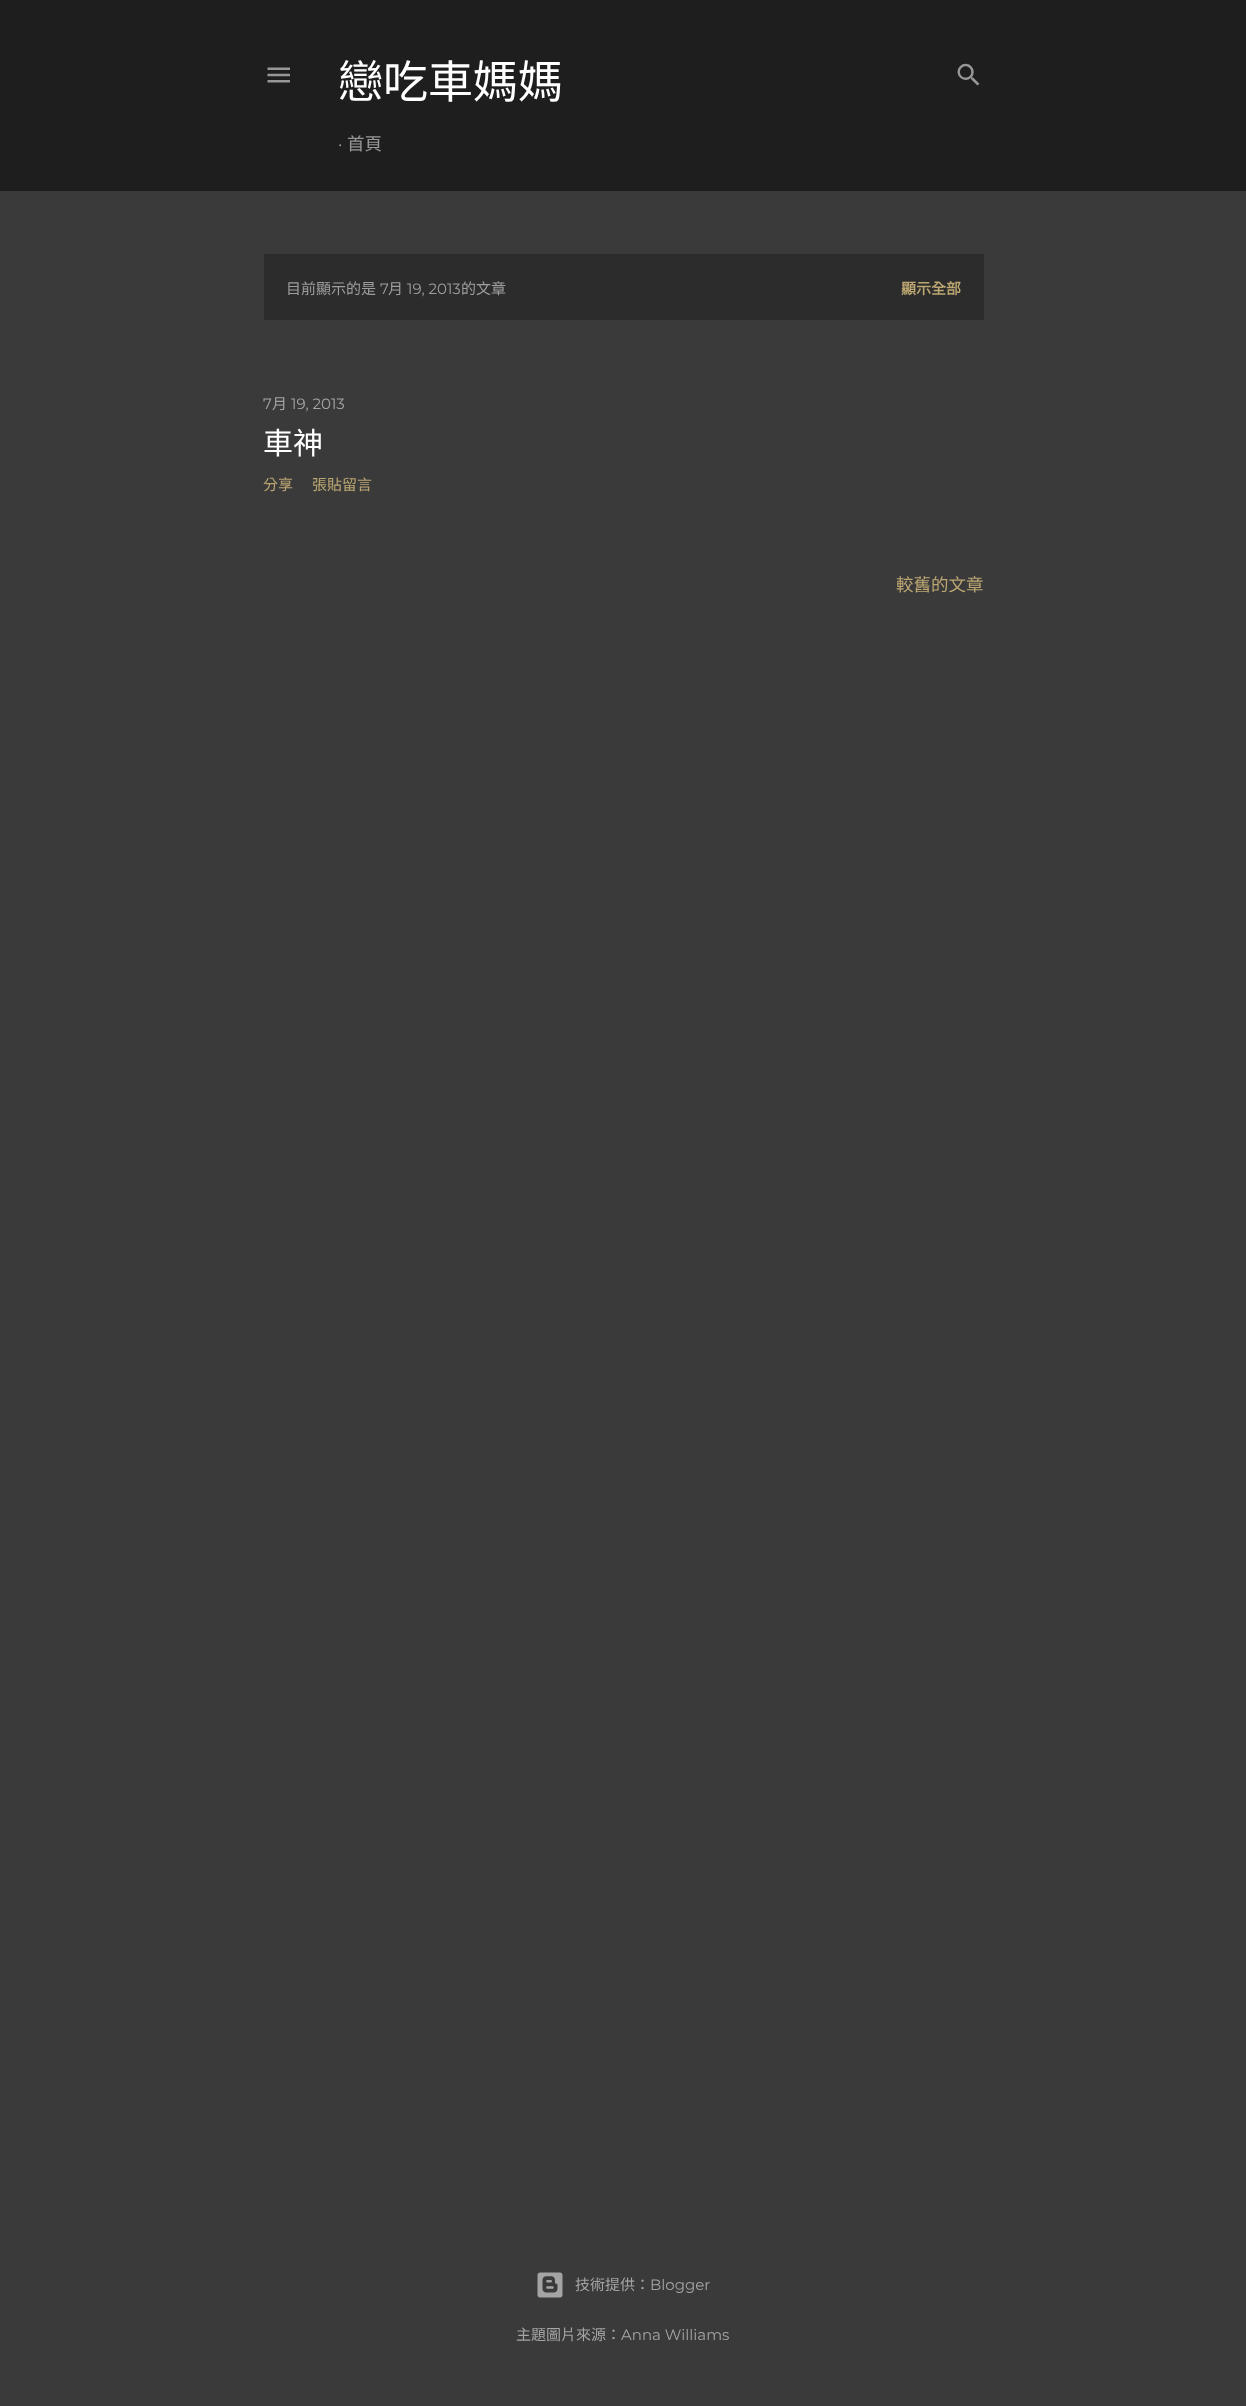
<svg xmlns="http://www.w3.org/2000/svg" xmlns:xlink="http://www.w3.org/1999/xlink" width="1246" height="2406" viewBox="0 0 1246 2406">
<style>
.cls-1{font:45px Noto Sans CJK TC;fill:#ffffff}
.cls-2{font:17.5px Montserrat;fill:#989898}
.cls-3{font:17.5px Noto Sans CJK TC;fill:#989898}
.cls-4{font:15px Noto Sans CJK TC;fill:#9e9e9e}
.cls-5{font:15px Montserrat;fill:#9e9e9e}
.cls-6{font:bold 15px Noto Sans CJK TC;fill:#bca772}
.cls-7{font:15px Montserrat;fill:#a4a4a4}
.cls-8{font:15px Noto Sans CJK TC;fill:#a4a4a4}
.cls-9{font:30px Noto Sans CJK TC;fill:#ffffff}
.cls-10{font:15px Noto Sans CJK TC;fill:#bca772}
.cls-11{font:17.5px Noto Sans CJK TC;fill:#bca772}
</style>
<rect width="100%" height="100%" fill="#3a3a3a"/>
<rect fill="#1e1e1e" x="0" y="0" width="1246" height="191"/>
<image xlink:href="image0.png" x="267" y="67" width="23" height="16"/>
<image xlink:href="image1.png" x="957" y="63" width="23" height="23"/>
<rect fill="#2c2c2c" x="264" y="254" width="720" height="66"/>
<image xlink:href="image2.png" x="537" y="2272" width="26" height="26"/>
<text class="cls-1" x="338" y="98">戀吃車媽媽</text>
<text class="cls-2" x="338" y="150">·</text>
<text class="cls-3" x="347" y="150">首頁</text>
<text class="cls-4" x="286" y="294">目前顯示的是</text>
<text class="cls-5" x="380" y="294">7</text>
<text class="cls-4" x="388" y="294">月</text>
<text class="cls-5" x="407" y="294">19, 2013</text>
<text class="cls-4" x="461" y="294">的文章</text>
<text class="cls-6" x="901" y="294">顯示全部</text>
<text class="cls-7" x="263" y="409">7</text>
<text class="cls-8" x="272" y="409">月</text>
<text class="cls-7" x="291" y="409">19, 2013</text>
<text class="cls-9" x="263" y="454">車神</text>
<text class="cls-10" x="263" y="490">分享</text>
<text class="cls-10" x="312" y="490">張貼留言</text>
<text class="cls-11" x="896" y="591">較舊的文章</text>
<text class="cls-8" x="575" y="2290">技術提供：</text>
<text class="cls-7" x="650" y="2290">Blogger</text>
<text class="cls-8" x="516" y="2340">主題圖片來源：</text>
<text class="cls-7" x="621" y="2340">Anna Williams</text>
</svg>
